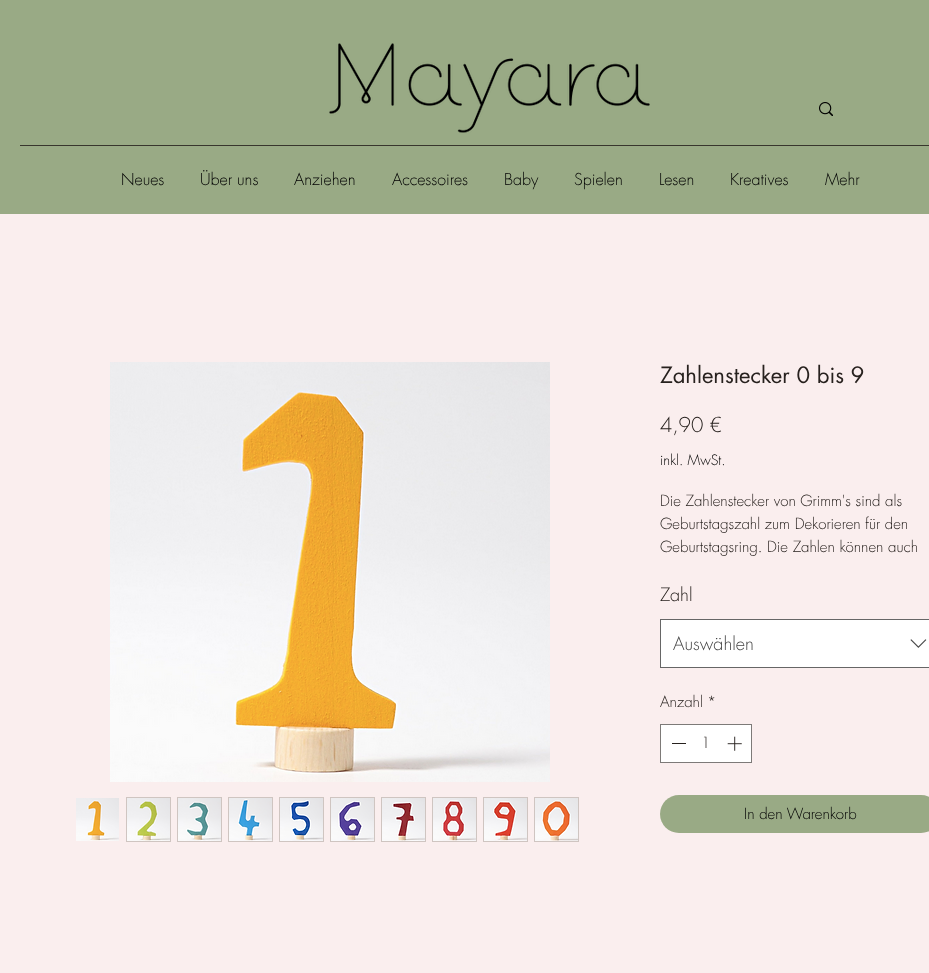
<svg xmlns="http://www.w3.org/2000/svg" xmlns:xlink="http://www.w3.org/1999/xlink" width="929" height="973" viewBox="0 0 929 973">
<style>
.cls-1{font:300 16px futura;fill:#000000}
.cls-2{font:22px futura;fill:#27211e}
.cls-3{font:300 20px futura;fill:#27211e}
.cls-4{font:300 14px futura;fill:#000000}
.cls-5{font:300 15px futura;fill:#27211e}
.cls-6{font:300 18px futura;fill:#27211e}
.cls-7{font:300 18px futura;fill:#444444}
.cls-8{font:300 15px futura;fill:#000000}
</style>
<rect width="100%" height="100%" fill="#faeeee"/>
<rect fill="#99aa85" x="0" y="0" width="929" height="214"/>
<image xlink:href="image0.png" x="329" y="43" width="321" height="90"/>
<image xlink:href="image1.png" x="819" y="102" width="14" height="14"/>
<rect fill="#38362d" x="20" y="145" width="909" height="1"/>
<image xlink:href="image2.png" x="110" y="362" width="440" height="420"/>
<image xlink:href="image3.png" x="76" y="798" width="43" height="43"/>
<rect fill="none" stroke="#cfc5c1" x="126.5" y="797.5" width="44" height="44"/>
<image xlink:href="image4.png" x="127" y="798" width="43" height="43"/>
<rect fill="none" stroke="#cfc5c1" x="177.5" y="797.5" width="44" height="44"/>
<image xlink:href="image5.png" x="178" y="798" width="43" height="43"/>
<rect fill="none" stroke="#cfc5c1" x="228.5" y="797.5" width="44" height="44"/>
<image xlink:href="image6.png" x="229" y="798" width="43" height="43"/>
<rect fill="none" stroke="#cfc5c1" x="279.5" y="797.5" width="44" height="44"/>
<image xlink:href="image7.png" x="280" y="798" width="43" height="43"/>
<rect fill="none" stroke="#cfc5c1" x="330.5" y="797.5" width="44" height="44"/>
<image xlink:href="image8.png" x="331" y="798" width="43" height="43"/>
<rect fill="none" stroke="#cfc5c1" x="381.5" y="797.5" width="44" height="44"/>
<image xlink:href="image9.png" x="382" y="798" width="43" height="43"/>
<rect fill="none" stroke="#cfc5c1" x="432.5" y="797.5" width="44" height="44"/>
<image xlink:href="image10.png" x="433" y="798" width="43" height="43"/>
<rect fill="none" stroke="#cfc5c1" x="483.5" y="797.5" width="44" height="44"/>
<image xlink:href="image11.png" x="484" y="798" width="43" height="43"/>
<rect fill="none" stroke="#cfc5c1" x="534.5" y="797.5" width="44" height="44"/>
<image xlink:href="image12.png" x="535" y="798" width="43" height="43"/>
<rect fill="#ffffff" stroke="#666666" x="660.5" y="619.5" width="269" height="48"/>
<image xlink:href="image13.png" x="910" y="639" width="17" height="9"/>
<rect fill="#ffffff" stroke="#7d7a78" x="660.5" y="724.5" width="91" height="38"/>
<rect fill="#27211e" x="672" y="743" width="14" height="1"/>
<image xlink:href="image14.png" x="727" y="736" width="15" height="15"/>
<rect fill="#99aa85" x="660" y="795" width="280" height="38" rx="19"/>
<text class="cls-1" x="121" y="185">Neues</text>
<text class="cls-1" x="200" y="185">Über uns</text>
<text class="cls-1" x="294" y="185">Anziehen</text>
<text class="cls-1" x="392" y="185">Accessoires</text>
<text class="cls-1" x="504" y="185">Baby</text>
<text class="cls-1" x="574" y="185">Spielen</text>
<text class="cls-1" x="659" y="185">Lesen</text>
<text class="cls-1" x="730" y="185">Kreatives</text>
<text class="cls-1" x="825" y="185">Mehr</text>
<text class="cls-2" x="660" y="383">Zahlenstecker 0 bis 9</text>
<text class="cls-3" x="660" y="432">4,90 €</text>
<text class="cls-4" x="660" y="465">inkl. MwSt.</text>
<text class="cls-5"><tspan x="660" y="506">Die Zahlenstecker von Grimm's sind als</tspan><tspan x="660" y="529">Geburtstagszahl zum Dekorieren für den</tspan><tspan x="660" y="552">Geburtstagsring. Die Zahlen können auch</tspan></text>
<text class="cls-6" x="660" y="601">Zahl</text>
<text class="cls-7" x="673" y="650">Auswählen</text>
<text class="cls-5" x="660" y="707">Anzahl</text>
<text class="cls-5" x="707" y="707">*</text>
<text class="cls-5" x="701" y="748">1</text>
<text class="cls-8" x="744" y="819">In den Warenkorb</text>
</svg>
